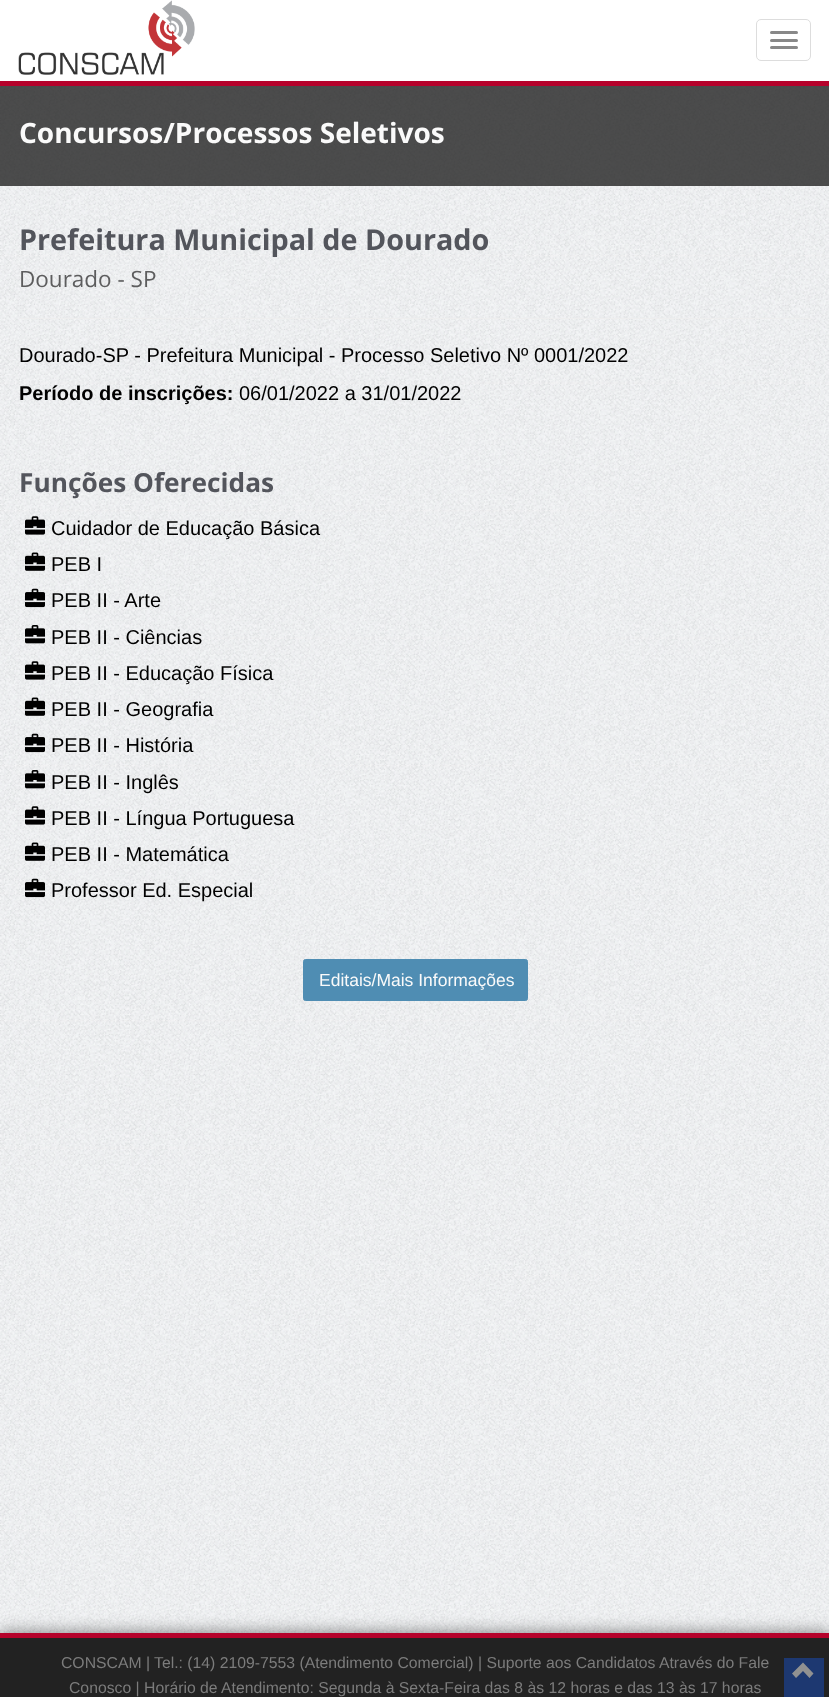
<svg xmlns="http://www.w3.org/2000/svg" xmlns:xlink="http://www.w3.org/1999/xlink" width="829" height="1697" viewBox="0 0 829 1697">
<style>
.cls-1{font:bold 28px Open Sans;fill:#fafafa}
.cls-2{font:bold 28.75px Open Sans;fill:#53555c}
.cls-3{font:22.5px Open Sans;fill:#5d5d5e}
.cls-4{font:20px Liberation Sans;fill:#000000}
.cls-5{font:bold 20px Liberation Sans;fill:#000000}
.cls-6{font:bold 26.25px Open Sans;fill:#53555c}
.cls-7{font:17.5px Liberation Sans;fill:#fafafa}
.cls-8{font:15.75px Liberation Sans;fill:#7c7c7c}
</style>
<rect width="100%" height="100%" fill="#ffffff"/>
<image xlink:href="image0.png" x="0" y="86" width="829" height="1547"/>
<rect fill="#b5022b" x="0" y="81" width="829" height="5"/>
<image xlink:href="image1.png" x="18" y="0" width="177" height="75"/>
<rect fill="none" stroke="#dddddd" x="756.5" y="19.5" width="54" height="41" rx="4.5"/>
<rect fill="#888888" x="770" y="31" width="28" height="3" rx="1.5"/>
<rect fill="#888888" x="770" y="39" width="28" height="3" rx="1.5"/>
<rect fill="#888888" x="770" y="46" width="28" height="3" rx="1.5"/>
<rect fill="#222222" fill-opacity="0.8" x="0" y="86" width="829" height="100"/>
<rect fill="#eeeeee" x="19" y="318" width="792" height="1"/>
<image xlink:href="image2.png" x="25" y="516" width="20" height="19"/>
<image xlink:href="image3.png" x="25" y="552" width="20" height="19"/>
<image xlink:href="image4.png" x="25" y="588" width="20" height="20"/>
<image xlink:href="image5.png" x="25" y="625" width="20" height="19"/>
<image xlink:href="image6.png" x="25" y="661" width="20" height="19"/>
<image xlink:href="image7.png" x="25" y="697" width="20" height="19"/>
<image xlink:href="image8.png" x="25" y="733" width="20" height="20"/>
<image xlink:href="image9.png" x="25" y="770" width="20" height="19"/>
<image xlink:href="image10.png" x="25" y="806" width="20" height="19"/>
<image xlink:href="image11.png" x="25" y="842" width="20" height="19"/>
<image xlink:href="image12.png" x="25" y="878" width="20" height="20"/>
<rect fill="#4f8db3" stroke="#4f8db3" x="303.5" y="959.5" width="224" height="41" rx="2"/>
<rect fill="#000000" fill-opacity="0.4" filter="blur(7.5px)" x="0" y="1631" width="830" height="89"/>
<rect fill="#222222" x="0" y="1638" width="829" height="59"/>
<rect fill="#b5022b" x="0" y="1633" width="829" height="5"/>
<rect fill="#1d3871" x="784" y="1658" width="40" height="39"/>
<path fill="#919191" d="M792 1673.5L796 1678L803 1671L809.5 1678L813.5 1673.5L803 1662.5Z"/>
<text class="cls-1" x="19" y="143">Concursos/Processos Seletivos</text>
<text class="cls-2" x="19" y="250">Prefeitura Municipal de Dourado</text>
<text class="cls-3" x="19" y="287">Dourado - SP</text>
<text class="cls-4" x="19" y="362">Dourado-SP - Prefeitura Municipal - Processo Seletivo Nº 0001/2022</text>
<text class="cls-5" x="19" y="400">Período de inscrições:</text>
<text class="cls-4" x="239" y="400">06/01/2022 a 31/01/2022</text>
<text class="cls-6" x="19" y="492">Funções Oferecidas</text>
<text class="cls-4"><tspan x="51" y="535">Cuidador de Educação Básica</tspan><tspan x="51" y="571">PEB I</tspan><tspan x="51" y="607">PEB II - Arte</tspan><tspan x="51" y="644">PEB II - Ciências</tspan><tspan x="51" y="680">PEB II - Educação Física</tspan><tspan x="51" y="716">PEB II - Geografia</tspan><tspan x="51" y="752">PEB II - História</tspan><tspan x="51" y="789">PEB II - Inglês</tspan><tspan x="51" y="825">PEB II - Língua Portuguesa</tspan><tspan x="51" y="861">PEB II - Matemática</tspan><tspan x="51" y="897">Professor Ed. Especial</tspan></text>
<text class="cls-7" x="319" y="986">Editais/Mais Informações</text>
<text class="cls-8" x="61" y="1668">CONSCAM | Tel.: (14) 2109-7553 (Atendimento Comercial) | Suporte aos Candidatos Através do Fale</text>
<text class="cls-8" x="69" y="1693">Conosco | Horário de Atendimento: Segunda à Sexta-Feira das 8 às 12 horas e das 13 às 17 horas</text>
</svg>
